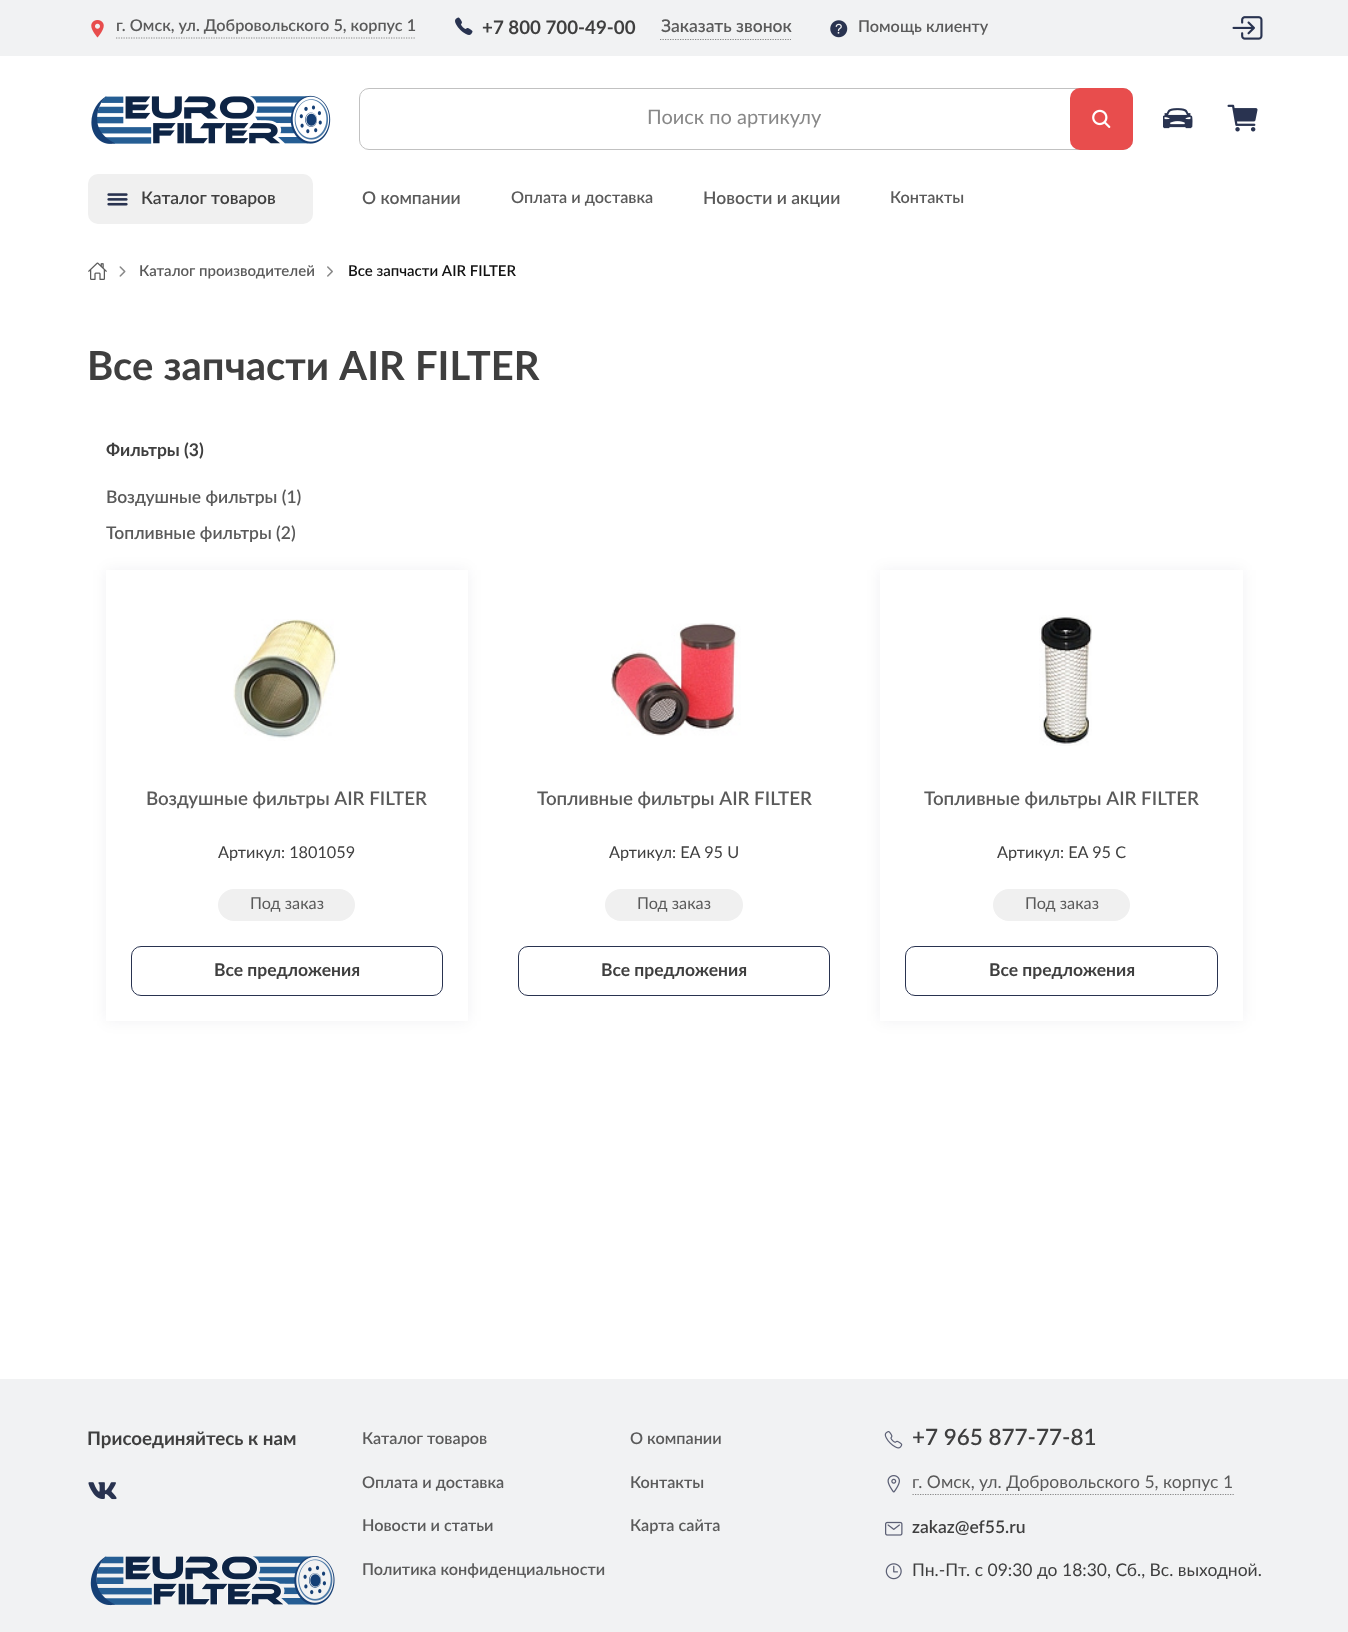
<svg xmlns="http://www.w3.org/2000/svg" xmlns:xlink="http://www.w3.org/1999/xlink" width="1348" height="1632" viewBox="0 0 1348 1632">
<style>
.cls-1{font:600 16.25px Lato;fill:#5a5a5a}
.cls-2{font:bold 18.75px Lato;fill:#3f3f3f}
.cls-3{font:600 17.5px Lato;fill:#5a5a5a}
.cls-4{font:20px Lato;fill:#888888}
.cls-5{font:600 17.5px Lato;fill:#3f3f3f}
.cls-6{font:600 15px Lato;fill:#5a5a5a}
.cls-7{font:600 15px Lato;fill:#111111}
.cls-8{font:bold 40px Lato;fill:#3f3f3f}
.cls-9{font:bold 17.5px Lato;fill:#3f3f3f}
.cls-10{font:600 18.75px Lato;fill:#5a5a5a}
.cls-11{font:16.25px Lato;fill:#3f3f3f}
.cls-12{font:16.25px Lato;fill:#5a5a5a}
.cls-13{font:600 22.5px Lato;fill:#3f3f3f}
.cls-14{font:17.5px Lato;fill:#5a5a5a}
.cls-15{font:17.5px Lato;fill:#3f3f3f}
</style>
<rect width="100%" height="100%" fill="#ffffff"/>
<rect fill="#f1f2f3" x="0" y="0" width="1348" height="56"/>
<image xlink:href="image0.png" x="91" y="20" width="13" height="18"/>
<path fill="none" stroke="#888888" stroke-width="1.2" stroke-dasharray="1.25 1.25" d="M116 38H416"/>
<image xlink:href="image1.png" x="455" y="17" width="18" height="18"/>
<path fill="none" stroke="#888888" stroke-width="1.2" stroke-dasharray="1.25 1.25" d="M660 39.5H791"/>
<image xlink:href="image2.png" x="830" y="20" width="18" height="18"/>
<image xlink:href="image3.png" x="1232" y="16" width="31" height="24"/>
<image xlink:href="image4.png" x="91" y="95" width="240" height="49"/>
<rect fill="none" stroke="#c1c1c1" x="359.5" y="88.5" width="773" height="61" rx="9.5"/>
<rect fill="#e84d4d" x="1070" y="88" width="63" height="62" rx="10"/>
<image xlink:href="image5.png" x="1092" y="109" width="19" height="19"/>
<image xlink:href="image6.png" x="1163" y="108" width="30" height="21"/>
<image xlink:href="image7.png" x="1227" y="104" width="31" height="28"/>
<rect fill="#f0f0f0" x="88" y="174" width="225" height="50" rx="10"/>
<image xlink:href="image8.png" x="107" y="193" width="21" height="13"/>
<image xlink:href="image9.png" x="88" y="262" width="19" height="18"/>
<image xlink:href="image10.png" x="119" y="266" width="7" height="11"/>
<image xlink:href="image11.png" x="327" y="266" width="6" height="11"/>
<rect fill="#0d1426" fill-opacity="0.06" filter="blur(7.5px)" x="106" y="570" width="362" height="451"/>
<rect fill="#ffffff" x="106" y="570" width="362" height="451"/>
<image xlink:href="image12.png" x="233" y="619" width="107" height="122"/>
<rect fill="#f0f0f0" x="218" y="889" width="137" height="32" rx="16"/>
<rect fill="none" stroke="#293350" x="131.5" y="946.5" width="311" height="49" rx="9.5"/>
<image xlink:href="image13.png" x="611" y="623" width="130" height="113"/>
<rect fill="#f0f0f0" x="605" y="889" width="138" height="32" rx="16"/>
<rect fill="none" stroke="#293350" x="518.5" y="946.5" width="311" height="49" rx="9.5"/>
<rect fill="#0d1426" fill-opacity="0.06" filter="blur(7.5px)" x="880" y="570" width="363" height="451"/>
<rect fill="#ffffff" x="880" y="570" width="363" height="451"/>
<image xlink:href="image14.png" x="1039" y="615" width="53" height="131"/>
<rect fill="#f0f0f0" x="993" y="889" width="137" height="32" rx="16"/>
<rect fill="none" stroke="#293350" x="905.5" y="946.5" width="312" height="49" rx="9.5"/>
<rect fill="#f1f2f3" x="0" y="1379" width="1348" height="253"/>
<image xlink:href="image15.png" x="88" y="1482" width="29" height="18"/>
<image xlink:href="image16.png" x="90" y="1556" width="245" height="50"/>
<image xlink:href="image17.png" x="884" y="1431" width="19" height="18"/>
<image xlink:href="image18.png" x="887" y="1475" width="13" height="18"/>
<path fill="none" stroke="#888888" stroke-width="1.2" stroke-dasharray="1.25 1.25" d="M912.5 1494.5H1234"/>
<image xlink:href="image19.png" x="885" y="1521" width="18" height="15"/>
<image xlink:href="image20.png" x="885" y="1563" width="17" height="17"/>
<text class="cls-1" x="116" y="31">г. Омск, ул. Добровольского 5, корпус 1</text>
<text class="cls-2" x="482" y="34">+7 800 700-49-00</text>
<text class="cls-3" x="661" y="32">Заказать звонок</text>
<text class="cls-1" x="858" y="32">Помощь клиенту</text>
<text class="cls-4" x="647" y="124">Поиск по артикулу</text>
<text class="cls-5" x="141" y="204">Каталог товаров</text>
<text class="cls-3" x="362" y="204">О компании</text>
<text class="cls-1" x="511" y="203">Оплата и доставка</text>
<text class="cls-3" x="703" y="204">Новости и акции</text>
<text class="cls-1" x="890" y="203">Контакты</text>
<text class="cls-6" x="139" y="276">Каталог производителей</text>
<text class="cls-7" x="348" y="276">Все запчасти AIR FILTER</text>
<text class="cls-8" x="87" y="380" word-spacing="0.5">Все запчасти AIR FILTER</text>
<text class="cls-9" x="106" y="456">Фильтры (3)</text>
<text class="cls-3" x="106" y="503">Воздушные фильтры (1)</text>
<text class="cls-3" x="106" y="539">Топливные фильтры (2)</text>
<text class="cls-10" x="146" y="805">Воздушные фильтры AIR FILTER</text>
<text class="cls-11" x="218" y="858">Артикул: 1801059</text>
<text class="cls-12" x="250" y="909">Под заказ</text>
<text class="cls-9" x="214" y="976">Все предложения</text>
<text class="cls-10" x="537" y="805">Топливные фильтры AIR FILTER</text>
<text class="cls-11" x="609" y="858">Артикул: EA 95 U</text>
<text class="cls-12" x="637" y="909">Под заказ</text>
<text class="cls-9" x="601" y="976">Все предложения</text>
<text class="cls-10" x="924" y="805">Топливные фильтры AIR FILTER</text>
<text class="cls-11" x="997" y="858">Артикул: EA 95 C</text>
<text class="cls-12" x="1025" y="909">Под заказ</text>
<text class="cls-9" x="989" y="976">Все предложения</text>
<text class="cls-2" x="87" y="1445">Присоединяйтесь к нам</text>
<text class="cls-1" x="362" y="1444">Каталог товаров</text>
<text class="cls-1" x="362" y="1488">Оплата и доставка</text>
<text class="cls-1" x="362" y="1531">Новости и статьи</text>
<text class="cls-1" x="362" y="1575">Политика конфиденциальности</text>
<text class="cls-1" x="630" y="1444">О компании</text>
<text class="cls-1" x="630" y="1488">Контакты</text>
<text class="cls-1" x="630" y="1531">Карта сайта</text>
<text class="cls-13" x="912" y="1445">+7 965 877-77-81</text>
<text class="cls-14" x="912" y="1488">г. Омск, ул. Добровольского 5, корпус 1</text>
<text class="cls-5" x="912" y="1533">zakaz@ef55.ru</text>
<text class="cls-15" x="912" y="1576">Пн.-Пт. с 09:30 до 18:30, Сб., Вс. выходной.</text>
</svg>
